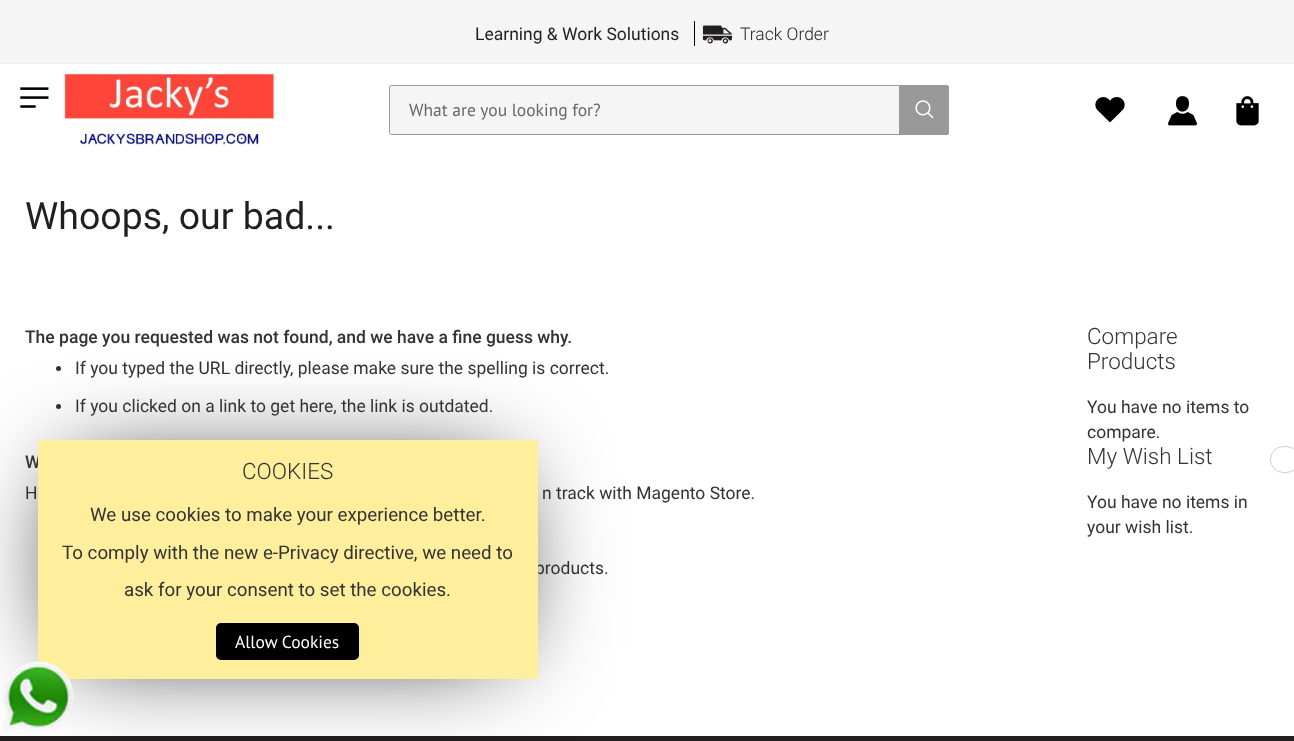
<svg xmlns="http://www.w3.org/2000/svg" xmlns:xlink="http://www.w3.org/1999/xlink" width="1294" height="741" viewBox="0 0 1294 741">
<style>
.cls-1{font:17.5px Roboto;fill:#231f20}
.cls-2{font:300 17.5px Roboto;fill:#231f20}
.cls-3{font:17.5px PT Sans;fill:#666666}
.cls-4{font:37.5px Roboto;fill:#231f20}
.cls-5{font:500 17.5px Roboto;fill:#333333}
.cls-6{font:17.5px Roboto;fill:#333333}
.cls-7{font:300 22.5px Roboto;fill:#333333}
.cls-8{font:18.75px Roboto;fill:#333333}
.cls-9{font:17.5px PT Sans;fill:#ffffff}
</style>
<rect width="100%" height="100%" fill="#ffffff"/>
<rect fill="#edeef2" x="0" y="63" width="1294" height="1"/>
<rect fill="#f5f5f5" x="0" y="0" width="1294" height="63"/>
<rect fill="#000000" x="694" y="21" width="1" height="25"/>
<image xlink:href="image0.png" x="702" y="25" width="31" height="19"/>
<image xlink:href="image1.png" x="20" y="87" width="29" height="21"/>
<image xlink:href="image2.png" x="62" y="72" width="213" height="77"/>
<rect fill="#f5f5f6" x="390" y="86" width="558" height="48" rx="1"/>
<rect fill="none" stroke="#999999" x="389.5" y="85.5" width="559" height="49" rx="2"/>
<path fill="#999999" d="M899 85H946.5C948 85 949 86 949 87.5V132.5C949 134 948 135 946.5 135H899Z"/>
<image xlink:href="image3.png" x="915" y="100" width="19" height="19"/>
<image xlink:href="image4.png" x="1095" y="97" width="30" height="25"/>
<image xlink:href="image5.png" x="1168" y="96" width="29" height="30"/>
<image xlink:href="image6.png" x="1236" y="96" width="23" height="30"/>
<circle fill="#333333" cx="58.5" cy="368.5" r="2.5"/>
<circle fill="#333333" cx="58.5" cy="406.5" r="2.5"/>
<rect fill="none" stroke="#cccccc" x="1270.5" y="446.5" width="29" height="26" rx="13"/>
<rect fill="#231f20" x="0" y="736" width="1294" height="5"/>
<rect fill="#000000" filter="blur(51px)" x="68" y="475" width="435" height="174"/>
<text class="cls-1" x="475" y="40">Learning &amp; Work Solutions</text>
<text class="cls-2" x="740" y="40">Track Order</text>
<text class="cls-3" x="409" y="116">What are you looking for?</text>
<text class="cls-4" x="25" y="229">Whoops, our bad...</text>
<text class="cls-5" x="25" y="343">The page you requested was not found, and we have a fine guess why.</text>
<text class="cls-6" x="75" y="374">If you typed the URL directly, please make sure the spelling is correct.</text>
<text class="cls-6" x="75" y="412">If you clicked on a link to get here, the link is outdated.</text>
<text class="cls-5" x="25" y="468">W</text>
<text class="cls-6" x="25" y="499">H</text>
<text class="cls-6" x="542" y="499">n track with Magento Store.</text>
<text class="cls-6" x="535" y="574">products.</text>
<text class="cls-7"><tspan x="1087" y="344">Compare</tspan><tspan x="1087" y="369">Products</tspan></text>
<text class="cls-6"><tspan x="1087" y="413">You have no items to</tspan><tspan x="1087" y="438">compare.</tspan></text>
<text class="cls-7" x="1087" y="464">My Wish List</text>
<text class="cls-6"><tspan x="1087" y="508">You have no items in</tspan><tspan x="1087" y="533">your wish list.</tspan></text>
<rect fill="#ffee9c" x="38" y="440" width="500" height="239"/>
<image xlink:href="image7.png" x="1" y="660" width="73" height="74"/>
<text class="cls-7" x="242" y="479">COOKIES</text>
<text class="cls-8" x="90" y="521">We use cookies to make your experience better.</text>
<text class="cls-8" x="62" y="559">To comply with the new e-Privacy directive, we need to</text>
<text class="cls-8" x="124" y="596">ask for your consent to set the cookies.</text>
<rect fill="#000000" x="216" y="623" width="143" height="37" rx="5"/>
<text class="cls-9" x="235" y="648">Allow Cookies</text>
</svg>
